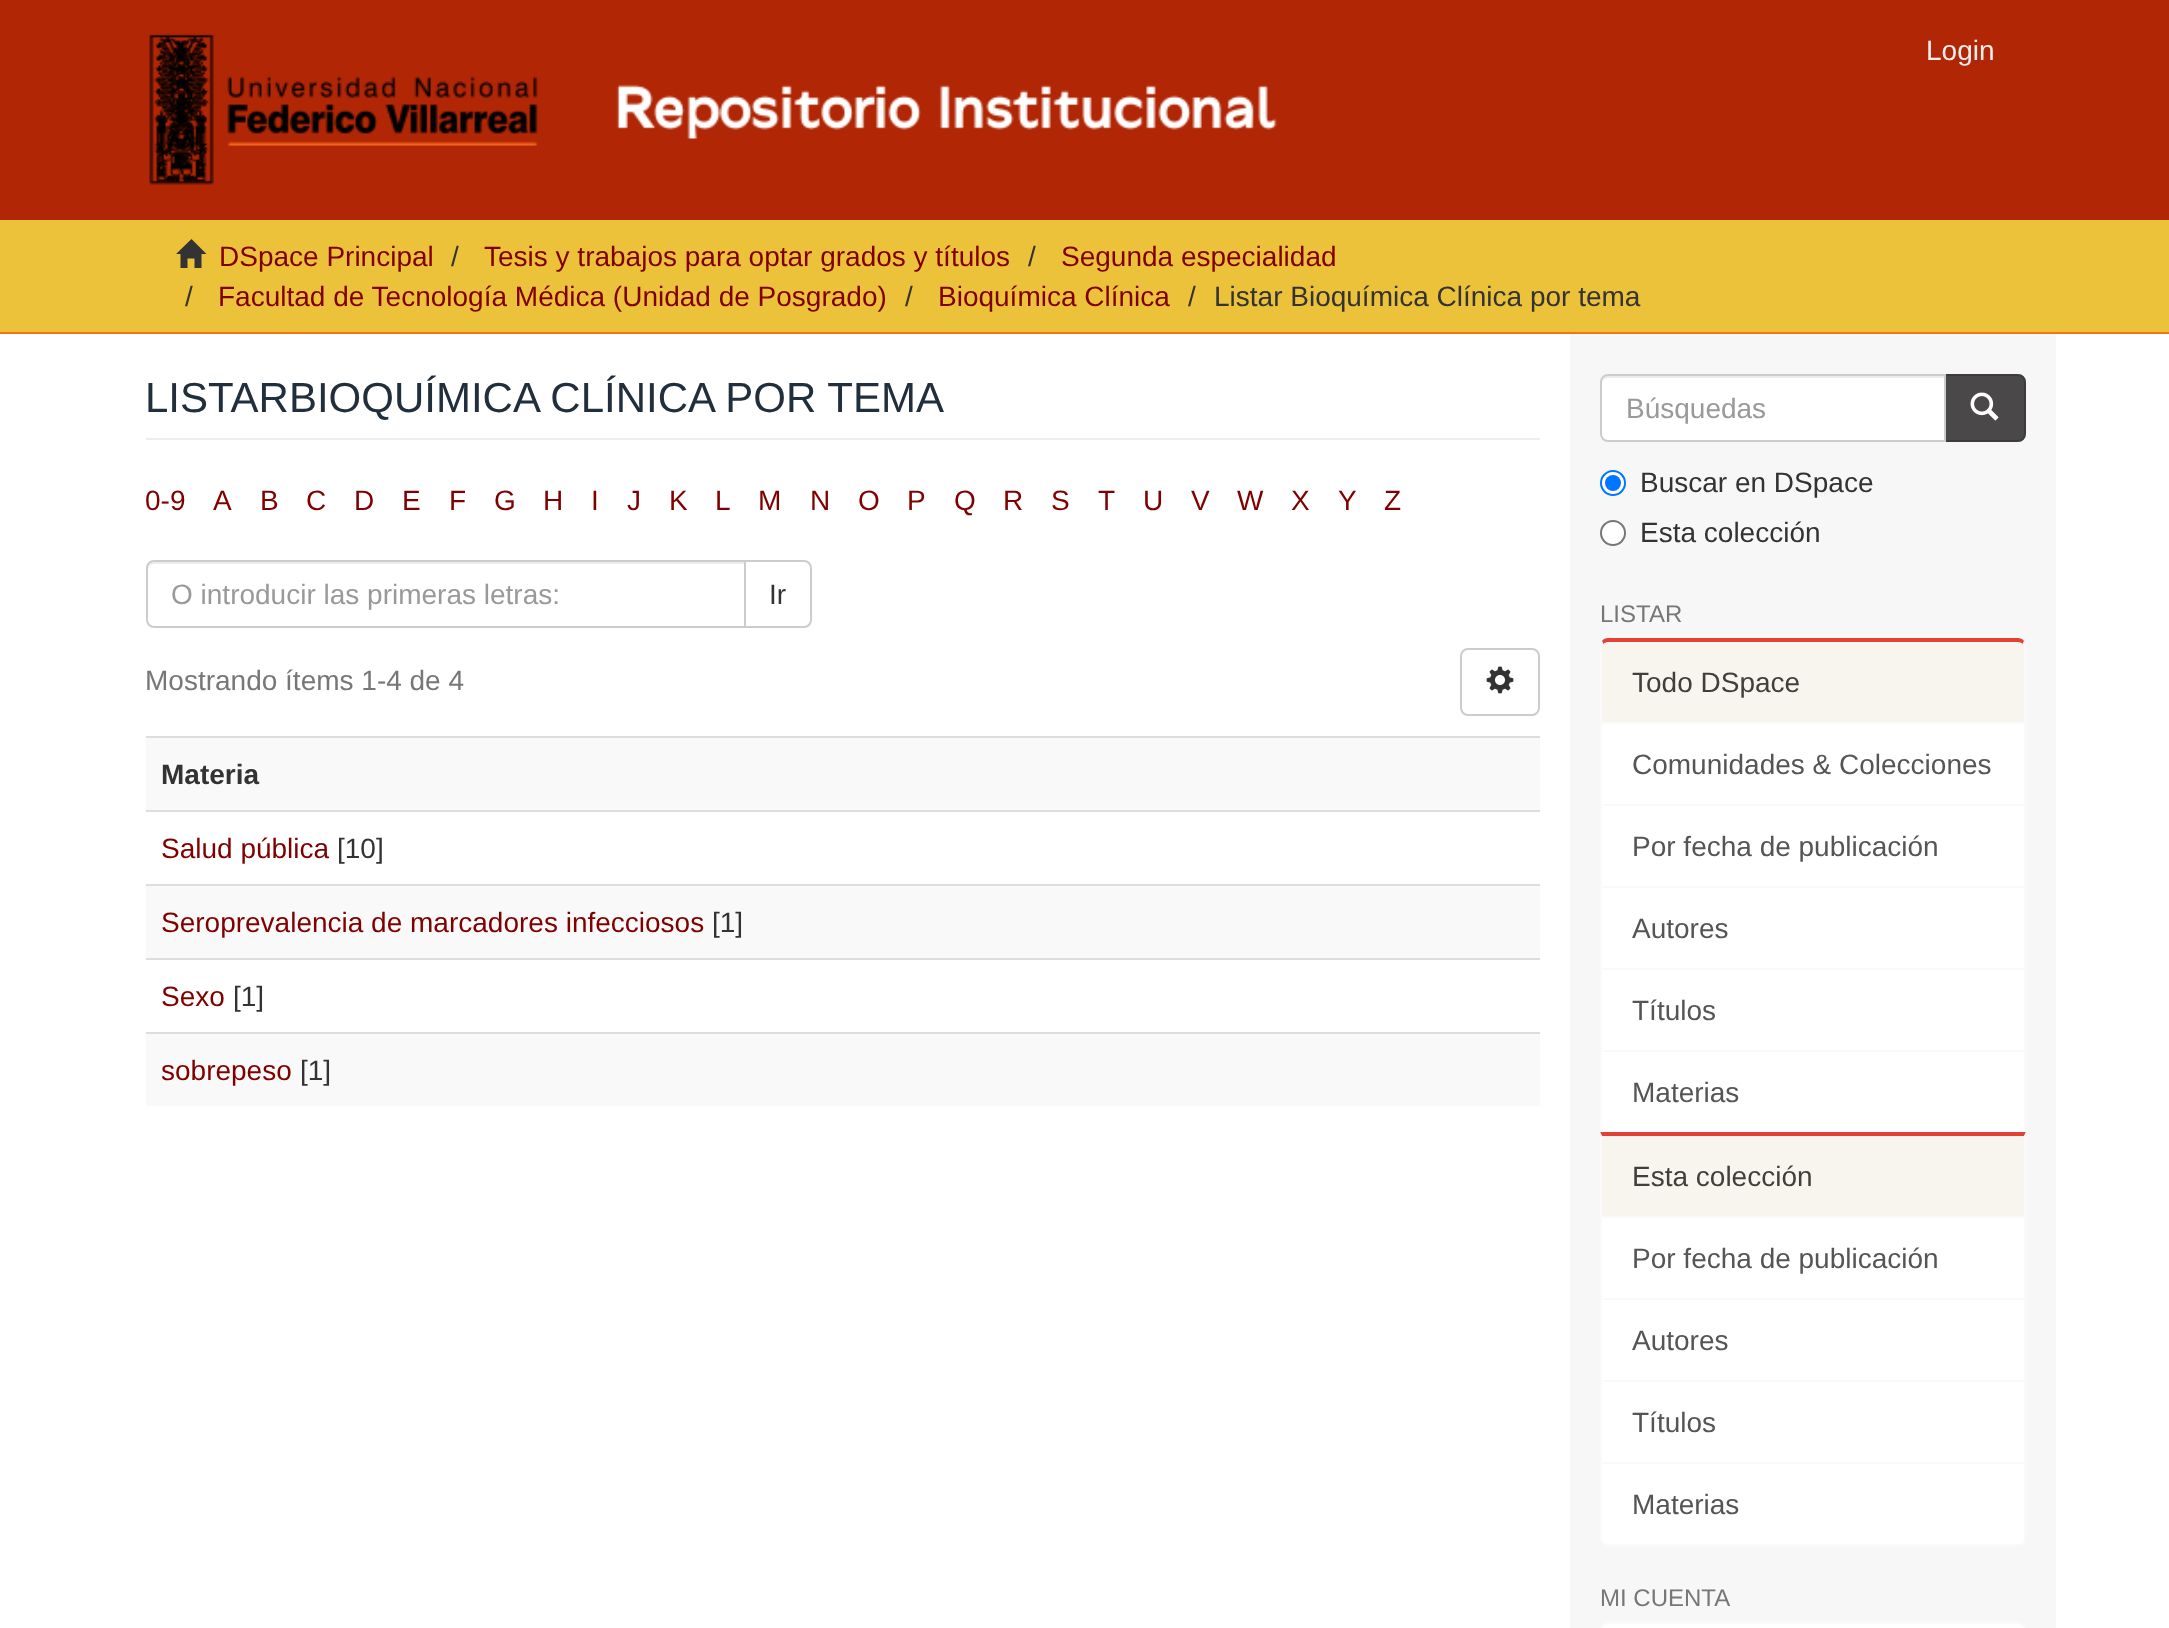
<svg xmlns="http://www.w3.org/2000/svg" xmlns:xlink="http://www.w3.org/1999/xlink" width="2169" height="1628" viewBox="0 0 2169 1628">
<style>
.cls-1{font:28px Liberation Sans;fill:#eeeeee}
.cls-2{font:28px Liberation Sans;fill:#800000}
.cls-3{font:28px Liberation Sans;fill:#333333}
.cls-4{font:42px Liberation Sans;fill:#212f3c}
.cls-5{font:28px Liberation Sans;fill:#999999}
.cls-6{font:28px Liberation Sans;fill:#777777}
.cls-7{font:bold 28px Liberation Sans;fill:#333333}
.cls-8{font:24px Liberation Sans;fill:#777777}
.cls-9{font:28px Liberation Sans;fill:#423f3a}
.cls-10{font:28px Liberation Sans;fill:#555555}
</style>
<rect width="100%" height="100%" fill="#ffffff"/>
<rect fill="#b12604" x="0" y="0" width="2169" height="220"/>
<image xlink:href="image0.png" x="149" y="33" width="1128" height="152"/>
<rect fill="#ebc23a" x="0" y="220" width="2169" height="112"/>
<rect fill="#f07613" x="0" y="332" width="2169" height="2"/>
<path fill="#333333" d="M176 254L191.5 239L206.5 254H201.5V268H194.5V258.5H187.5V268H180.5V254Z"/>
<rect fill="#eeeeee" x="146" y="438" width="1394" height="2"/>
<path fill="none" stroke="#cccccc" stroke-width="2" d="M745 561H804C808 561 811 564 811 568V620C811 624 808 627 804 627H745Z"/>
<path fill="#ffffff" d="M154 560H746V628H154C149.5 628 146 624.5 146 620V568C146 563.5 149.5 560 154 560Z"/>
<path fill="#ececec" d="M154 564H744V562H154C149 562 148 566 148 570C148 567 151 564 154 564Z"/>
<path fill="none" stroke="#cccccc" stroke-width="2" d="M154 561H745V627H154C150 627 147 624 147 620V568C147 564 150 561 154 561Z"/>
<rect fill="none" stroke="#cccccc" stroke-width="2" x="1461" y="649" width="78" height="66" rx="7"/>
<image xlink:href="image1.png" x="1486" y="666" width="28" height="28"/>
<rect fill="#f9f9f9" x="146" y="738" width="1394" height="72"/>
<rect fill="#dddddd" x="146" y="736" width="1394" height="2"/>
<rect fill="#dddddd" x="146" y="810" width="1394" height="2"/>
<rect fill="#f9f9f9" x="146" y="886" width="1394" height="72"/>
<rect fill="#dddddd" x="146" y="884" width="1394" height="2"/>
<rect fill="#dddddd" x="146" y="958" width="1394" height="2"/>
<rect fill="#f9f9f9" x="146" y="1034" width="1394" height="72"/>
<rect fill="#dddddd" x="146" y="1032" width="1394" height="2"/>
<rect fill="#f7f7f7" x="1570" y="334" width="486" height="1294"/>
<path fill="#4a4848" stroke="#3d3b3b" stroke-width="2" d="M1945 375H2018C2022 375 2025 378 2025 382V434C2025 438 2022 441 2018 441H1945Z"/>
<path fill="#ffffff" d="M1608 374H1946V442H1608C1603.5 442 1600 438.5 1600 434V382C1600 377.5 1603.5 374 1608 374Z"/>
<path fill="#ececec" d="M1608 378H1944V376H1607C1603 377 1602 381 1602 384C1602 381 1605 378 1608 378Z"/>
<path fill="none" stroke="#cccccc" stroke-width="2" d="M1608 375H1945V441H1608C1604 441 1601 438 1601 434V382C1601 378 1604 375 1608 375Z"/>
<image xlink:href="image2.png" x="1970" y="392" width="29" height="29"/>
<circle fill="#ffffff" stroke="#0075ff" stroke-width="2" cx="1613" cy="483" r="12"/>
<circle fill="#0075ff" cx="1613" cy="483" r="8"/>
<circle fill="#ffffff" stroke="#767676" stroke-width="2" cx="1613" cy="533" r="12"/>
<path fill="#f8f5ee" d="M1608 642H2018C2021 642 2024 644 2024 646V722H1602V646C1602 644 1605 642 1608 642Z"/>
<path fill="#e14235" d="M1608 638C1606 638 1603 639 1602 641L1603 644C1604 643 1606 642 1608 642H2018C2020 642 2022 643 2023 644L2024 641C2023 639 2020 638 2018 638Z"/>
<rect fill="#ffffff" stroke="#fafafa" stroke-width="2" x="1601" y="723" width="424" height="82"/>
<path fill="#fafafa" d="M2026 724V646C2026 644 2025 643 2024 641L2023 644L2024 646V722Z"/>
<path fill="#fafafa" d="M1600 724L1602 722V646L1603 644L1602 641C1601 643 1600 644 1600 646Z"/>
<rect fill="#ffffff" stroke="#fafafa" stroke-width="2" x="1601" y="805" width="424" height="82"/>
<rect fill="#ffffff" stroke="#fafafa" stroke-width="2" x="1601" y="887" width="424" height="82"/>
<rect fill="#ffffff" stroke="#fafafa" stroke-width="2" x="1601" y="969" width="424" height="82"/>
<rect fill="#ffffff" stroke="#fafafa" stroke-width="2" x="1601" y="1051" width="424" height="82"/>
<rect fill="#f8f5ee" x="1602" y="1136" width="422" height="80"/>
<path fill="#e14235" d="M1600 1132H2026L2024 1136H1602Z"/>
<rect fill="#ffffff" stroke="#fafafa" stroke-width="2" x="1601" y="1217" width="424" height="82"/>
<path fill="#fafafa" d="M2026 1132V1218L2024 1216V1136Z"/>
<path fill="#fafafa" d="M1600 1218V1132L1602 1136V1216Z"/>
<rect fill="#ffffff" stroke="#fafafa" stroke-width="2" x="1601" y="1299" width="424" height="82"/>
<rect fill="#ffffff" stroke="#fafafa" stroke-width="2" x="1601" y="1381" width="424" height="82"/>
<path fill="#ffffff" stroke="#fafafa" stroke-width="2" d="M1601 1463H2025V1538C2025 1542 2022 1545 2018 1545H1608C1604 1545 1601 1542 1601 1538Z"/>
<rect fill="#ffffff" stroke="#fafafa" stroke-width="2" x="1601" y="1623" width="424" height="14" rx="7"/>
<text class="cls-1" x="1926" y="60">Login</text>
<text class="cls-2" x="219" y="266">DSpace Principal</text>
<text class="cls-3" x="451" y="266">/</text>
<text class="cls-2" x="484" y="266">Tesis y trabajos para optar grados y títulos</text>
<text class="cls-3" x="1028" y="266">/</text>
<text class="cls-2" x="1061" y="266">Segunda especialidad</text>
<text class="cls-3" x="185" y="306">/</text>
<text class="cls-2" x="218" y="306">Facultad de Tecnología Médica (Unidad de Posgrado)</text>
<text class="cls-3" x="905" y="306">/</text>
<text class="cls-2" x="938" y="306">Bioquímica Clínica</text>
<text class="cls-3" x="1188" y="306">/</text>
<text class="cls-3" x="1214" y="306">Listar Bioquímica Clínica por tema</text>
<text class="cls-4" x="145" y="412">LISTARBIOQUÍMICA CLÍNICA POR TEMA</text>
<text class="cls-2" x="145" y="510">0-9</text>
<text class="cls-2" x="213" y="510">A</text>
<text class="cls-2" x="260" y="510">B</text>
<text class="cls-2" x="306" y="510">C</text>
<text class="cls-2" x="354" y="510">D</text>
<text class="cls-2" x="402" y="510">E</text>
<text class="cls-2" x="449" y="510">F</text>
<text class="cls-2" x="494" y="510">G</text>
<text class="cls-2" x="543" y="510">H</text>
<text class="cls-2" x="591" y="510">I</text>
<text class="cls-2" x="627" y="510">J</text>
<text class="cls-2" x="669" y="510">K</text>
<text class="cls-2" x="715" y="510">L</text>
<text class="cls-2" x="758" y="510">M</text>
<text class="cls-2" x="810" y="510">N</text>
<text class="cls-2" x="858" y="510">O</text>
<text class="cls-2" x="907" y="510">P</text>
<text class="cls-2" x="954" y="510">Q</text>
<text class="cls-2" x="1003" y="510">R</text>
<text class="cls-2" x="1051" y="510">S</text>
<text class="cls-2" x="1098" y="510">T</text>
<text class="cls-2" x="1143" y="510">U</text>
<text class="cls-2" x="1191" y="510">V</text>
<text class="cls-2" x="1237" y="510">W</text>
<text class="cls-2" x="1291" y="510">X</text>
<text class="cls-2" x="1338" y="510">Y</text>
<text class="cls-2" x="1384" y="510">Z</text>
<text class="cls-5" x="171" y="604">O introducir las primeras letras:</text>
<text class="cls-3" x="769" y="604">Ir</text>
<text class="cls-6" x="145" y="690">Mostrando ítems 1-4 de 4</text>
<text class="cls-7" x="161" y="784">Materia</text>
<text class="cls-2" x="161" y="858">Salud pública</text>
<text class="cls-3" x="337" y="858">[10]</text>
<text class="cls-2" x="161" y="932">Seroprevalencia de marcadores infecciosos</text>
<text class="cls-3" x="712" y="932">[1]</text>
<text class="cls-2" x="161" y="1006">Sexo</text>
<text class="cls-3" x="233" y="1006">[1]</text>
<text class="cls-2" x="161" y="1080">sobrepeso</text>
<text class="cls-3" x="300" y="1080">[1]</text>
<text class="cls-5" x="1626" y="418">Búsquedas</text>
<text class="cls-3"><tspan x="1640" y="492">Buscar en DSpace</tspan><tspan x="1640" y="542">Esta colección</tspan></text>
<text class="cls-8" x="1600" y="622">LISTAR</text>
<text class="cls-9" x="1632" y="692">Todo DSpace</text>
<text class="cls-10" x="1632" y="774">Comunidades &amp; Colecciones</text>
<text class="cls-10" x="1632" y="856">Por fecha de publicación</text>
<text class="cls-10" x="1632" y="938">Autores</text>
<text class="cls-10" x="1632" y="1020">Títulos</text>
<text class="cls-10" x="1632" y="1102">Materias</text>
<text class="cls-9" x="1632" y="1186">Esta colección</text>
<text class="cls-10" x="1632" y="1268">Por fecha de publicación</text>
<text class="cls-10" x="1632" y="1350">Autores</text>
<text class="cls-10" x="1632" y="1432">Títulos</text>
<text class="cls-10" x="1632" y="1514">Materias</text>
<text class="cls-8" x="1600" y="1606">MI CUENTA</text>
</svg>
